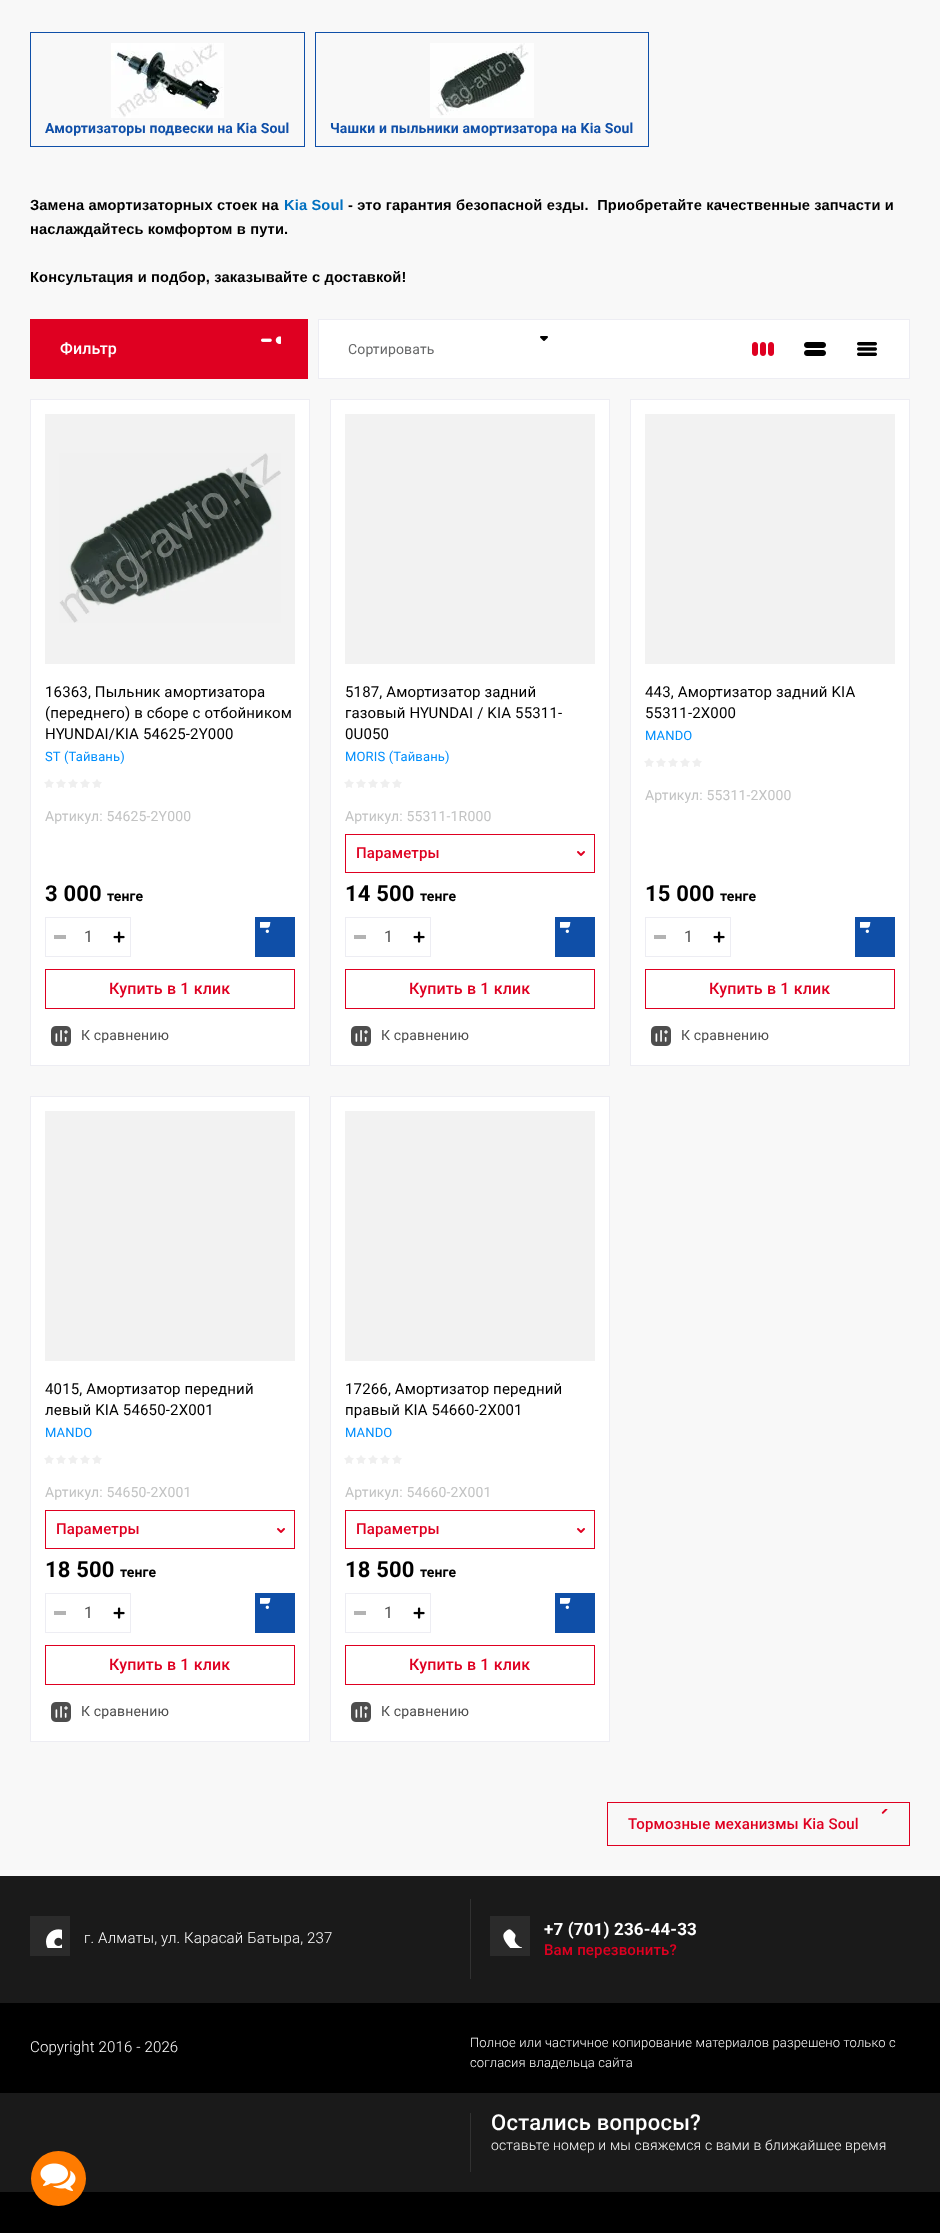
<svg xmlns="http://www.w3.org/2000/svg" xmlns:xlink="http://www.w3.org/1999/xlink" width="940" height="2233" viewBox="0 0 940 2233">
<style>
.cls-1{font:bold 14px Roboto;letter-spacing:0.15px;fill:#0f4fa8}
.cls-2{font:bold 14.65px Liberation Sans;letter-spacing:0.15px;fill:#000000}
.cls-3{font:bold 14.65px Liberation Sans;letter-spacing:0.15px;fill:#0070c0}
.cls-4{font:500 16px Roboto;letter-spacing:0.15px;fill:#ffffff}
.cls-5{font:14px Roboto;letter-spacing:0.15px;fill:#676869}
.cls-6{font:15px Roboto;letter-spacing:0.15px;fill:#000000}
.cls-7{font:13px Roboto;letter-spacing:0.15px;fill:#008efc}
.cls-8{font:14px Roboto;letter-spacing:0.15px;fill:#c2c3c3}
.cls-9{font:bold 22px Roboto;letter-spacing:0.15px;fill:#000000}
.cls-10{font:bold 14px Roboto;letter-spacing:0.15px;fill:#000000}
.cls-11{font:16px Roboto;fill:#4d4d4d}
.cls-12{font:500 16px Roboto;letter-spacing:0.15px;fill:#df0021}
.cls-13{font:14px Roboto;letter-spacing:0.15px;fill:#4d4d4d}
.cls-14{font:500 15px Roboto;letter-spacing:0.15px;fill:#df0021}
.cls-15{font:300 15px Roboto;letter-spacing:0.15px;fill:#ffffff}
.cls-16{font:bold 17px Roboto;letter-spacing:0.15px;fill:#ffffff}
.cls-17{font:300 13px Roboto;letter-spacing:0.15px;fill:#ffffff}
.cls-18{font:500 22px Roboto;letter-spacing:0.25px;fill:#ffffff}
.cls-19{font:300 14px Roboto;letter-spacing:0.15px;fill:#ffffff}
</style>
<rect width="100%" height="100%" fill="#f8f8f8"/>
<rect fill="none" stroke="#0f4fa8" x="30.5" y="32.5" width="274" height="114"/>
<image xlink:href="image0.png" x="111" y="43" width="113" height="75"/>
<rect fill="none" stroke="#0f4fa8" x="315.5" y="32.5" width="333" height="114"/>
<image xlink:href="image1.png" x="430" y="43" width="104" height="75"/>
<rect fill="#df0021" x="30" y="319" width="278" height="60"/>
<image xlink:href="image2.png" x="261" y="336" width="20" height="8"/>
<rect fill="#ffffff" stroke="#ededf3" x="318.5" y="319.5" width="591" height="59"/>
<image xlink:href="image3.png" x="540" y="336" width="8" height="5"/>
<image xlink:href="image4.png" x="752" y="342" width="22" height="14"/>
<image xlink:href="image5.png" x="804" y="342" width="22" height="14"/>
<image xlink:href="image6.png" x="857" y="342" width="20" height="14"/>
<rect fill="#ffffff" x="31" y="400" width="278" height="665"/>
<rect fill="#f2f2f2" x="45" y="414" width="250" height="250"/>
<rect fill="none" stroke="#ededf3" x="30.5" y="399.5" width="279" height="666"/>
<image xlink:href="image7.png" x="59" y="453" width="222" height="170"/>
<image xlink:href="image8.png" x="44" y="779" width="58" height="9"/>
<rect fill="none" stroke="#ededf3" x="45.5" y="917.5" width="85" height="39"/>
<rect fill="#b3b3b3" x="54" y="935" width="12" height="4"/>
<image xlink:href="image9.png" x="113" y="931" width="12" height="12"/>
<rect fill="#0f4fa8" x="255" y="917" width="40" height="40"/>
<image xlink:href="image10.png" x="260" y="922" width="11" height="11"/>
<rect fill="none" stroke="#df0021" x="45.5" y="969.5" width="249" height="39"/>
<image xlink:href="image11.png" x="51" y="1026" width="20" height="20"/>
<rect fill="#ffffff" stroke="#ededf3" x="330.5" y="399.5" width="279" height="666"/>
<rect fill="#f2f2f2" x="345" y="414" width="250" height="250"/>
<image xlink:href="image8.png" x="344" y="779" width="58" height="9"/>
<rect fill="none" stroke="#df0021" x="345.5" y="834.5" width="249" height="38"/>
<image xlink:href="image12.png" x="577" y="851" width="8" height="5"/>
<rect fill="none" stroke="#ededf3" x="345.5" y="917.5" width="85" height="39"/>
<rect fill="#b3b3b3" x="354" y="935" width="12" height="4"/>
<image xlink:href="image9.png" x="413" y="931" width="12" height="12"/>
<rect fill="#0f4fa8" x="555" y="917" width="40" height="40"/>
<image xlink:href="image10.png" x="560" y="922" width="11" height="11"/>
<rect fill="none" stroke="#df0021" x="345.5" y="969.5" width="249" height="39"/>
<image xlink:href="image11.png" x="351" y="1026" width="20" height="20"/>
<rect fill="#ffffff" stroke="#ededf3" x="630.5" y="399.5" width="279" height="666"/>
<rect fill="#f2f2f2" x="645" y="414" width="250" height="250"/>
<image xlink:href="image8.png" x="644" y="758" width="58" height="9"/>
<rect fill="none" stroke="#ededf3" x="645.5" y="917.5" width="85" height="39"/>
<rect fill="#b3b3b3" x="654" y="935" width="12" height="4"/>
<image xlink:href="image9.png" x="713" y="931" width="12" height="12"/>
<rect fill="#0f4fa8" x="855" y="917" width="40" height="40"/>
<image xlink:href="image10.png" x="860" y="922" width="11" height="11"/>
<rect fill="none" stroke="#df0021" x="645.5" y="969.5" width="249" height="39"/>
<image xlink:href="image11.png" x="651" y="1026" width="20" height="20"/>
<rect fill="#ffffff" stroke="#ededf3" x="30.5" y="1096.5" width="279" height="645"/>
<rect fill="#f2f2f2" x="45" y="1111" width="250" height="250"/>
<image xlink:href="image8.png" x="44" y="1455" width="58" height="9"/>
<rect fill="none" stroke="#df0021" x="45.5" y="1510.5" width="249" height="38"/>
<image xlink:href="image12.png" x="277" y="1528" width="8" height="5"/>
<rect fill="none" stroke="#ededf3" x="45.5" y="1593.5" width="85" height="39"/>
<rect fill="#b3b3b3" x="54" y="1611" width="12" height="4"/>
<image xlink:href="image9.png" x="113" y="1607" width="12" height="12"/>
<rect fill="#0f4fa8" x="255" y="1593" width="40" height="40"/>
<image xlink:href="image10.png" x="260" y="1598" width="11" height="11"/>
<rect fill="none" stroke="#df0021" x="45.5" y="1645.5" width="249" height="39"/>
<image xlink:href="image11.png" x="51" y="1702" width="20" height="20"/>
<rect fill="#ffffff" stroke="#ededf3" x="330.5" y="1096.5" width="279" height="645"/>
<rect fill="#f2f2f2" x="345" y="1111" width="250" height="250"/>
<image xlink:href="image8.png" x="344" y="1455" width="58" height="9"/>
<rect fill="none" stroke="#df0021" x="345.5" y="1510.5" width="249" height="38"/>
<image xlink:href="image12.png" x="577" y="1528" width="8" height="5"/>
<rect fill="none" stroke="#ededf3" x="345.5" y="1593.5" width="85" height="39"/>
<rect fill="#b3b3b3" x="354" y="1611" width="12" height="4"/>
<image xlink:href="image9.png" x="413" y="1607" width="12" height="12"/>
<rect fill="#0f4fa8" x="555" y="1593" width="40" height="40"/>
<image xlink:href="image10.png" x="560" y="1598" width="11" height="11"/>
<rect fill="none" stroke="#df0021" x="345.5" y="1645.5" width="249" height="39"/>
<image xlink:href="image11.png" x="351" y="1702" width="20" height="20"/>
<rect fill="none" stroke="#df0021" x="607.5" y="1802.5" width="302" height="43"/>
<image xlink:href="image13.png" x="881" y="1809" width="7" height="5"/>
<rect fill="#000000" x="0" y="2003" width="940" height="230"/>
<rect fill="#1a1a1a" x="0" y="1876" width="940" height="127"/>
<rect fill="#2b2b2b" x="30" y="1916" width="40" height="40"/>
<image xlink:href="image14.png" x="46" y="1929" width="16" height="19"/>
<rect fill="#313131" x="470" y="1899" width="1" height="80"/>
<rect fill="#2b2b2b" x="490" y="1916" width="40" height="40"/>
<image xlink:href="image15.png" x="503" y="1929" width="19" height="19"/>
<rect fill="#1a1a1a" x="0" y="2093" width="940" height="99"/>
<rect fill="#313131" x="470" y="2113" width="1" height="59"/>
<circle fill="#ff7b00" cx="58.5" cy="2178.5" r="27.5"/>
<image xlink:href="image16.png" x="40" y="2163" width="36" height="28"/>
<text class="cls-1" x="45" y="133">Амортизаторы подвески на Kia Soul</text>
<text class="cls-1" x="330" y="133">Чашки и пыльники амортизатора на Kia Soul</text>
<text class="cls-2" x="30" y="210">Замена амортизаторных стоек на</text>
<text class="cls-3" x="284" y="210">Kia Soul</text>
<text class="cls-2" xml:space="preserve" x="348" y="210">- это гарантия безопасной езды.  Приобретайте качественные запчасти и</text>
<text class="cls-2" x="30" y="234">наслаждайтесь комфортом в пути.</text>
<text class="cls-2" x="30" y="282">Консультация и подбор, заказывайте с доставкой!</text>
<text class="cls-4" x="60" y="354">Фильтр</text>
<text class="cls-5" x="348" y="354">Сортировать</text>
<text class="cls-6"><tspan x="45" y="697">16363, Пыльник амортизатора</tspan><tspan x="45" y="718">(переднего) в сборе с отбойником</tspan><tspan x="45" y="739">HYUNDAI/KIA 54625-2Y000</tspan></text>
<text class="cls-7" x="45" y="761">ST (Тайвань)</text>
<text class="cls-8" x="45" y="821">Артикул: 54625-2Y000</text>
<text class="cls-9" x="45" y="901">3 000</text>
<text class="cls-10" x="107" y="901">тенге</text>
<text class="cls-11" x="84" y="942">1</text>
<text class="cls-12" x="109" y="994">Купить в 1 клик</text>
<text class="cls-13" x="81" y="1040">К сравнению</text>
<text class="cls-6"><tspan x="345" y="697">5187, Амортизатор задний</tspan><tspan x="345" y="718">газовый HYUNDAI / KIA 55311-</tspan><tspan x="345" y="739">0U050</tspan></text>
<text class="cls-7" x="345" y="761">MORIS (Тайвань)</text>
<text class="cls-8" x="345" y="821">Артикул: 55311-1R000</text>
<text class="cls-14" x="356" y="858">Параметры</text>
<text class="cls-9" x="345" y="901">14 500</text>
<text class="cls-10" x="420" y="901">тенге</text>
<text class="cls-11" x="384" y="942">1</text>
<text class="cls-12" x="409" y="994">Купить в 1 клик</text>
<text class="cls-13" x="381" y="1040">К сравнению</text>
<text class="cls-6"><tspan x="645" y="697">443, Амортизатор задний KIA</tspan><tspan x="645" y="718">55311-2X000</tspan></text>
<text class="cls-7" x="645" y="740">MANDO</text>
<text class="cls-8" x="645" y="800">Артикул: 55311-2X000</text>
<text class="cls-9" x="645" y="901">15 000</text>
<text class="cls-10" x="720" y="901">тенге</text>
<text class="cls-11" x="684" y="942">1</text>
<text class="cls-12" x="709" y="994">Купить в 1 клик</text>
<text class="cls-13" x="681" y="1040">К сравнению</text>
<text class="cls-6"><tspan x="45" y="1394">4015, Амортизатор передний</tspan><tspan x="45" y="1415">левый KIA 54650-2X001</tspan></text>
<text class="cls-7" x="45" y="1437">MANDO</text>
<text class="cls-8" x="45" y="1497">Артикул: 54650-2X001</text>
<text class="cls-14" x="56" y="1534">Параметры</text>
<text class="cls-9" x="45" y="1577">18 500</text>
<text class="cls-10" x="120" y="1577">тенге</text>
<text class="cls-11" x="84" y="1618">1</text>
<text class="cls-12" x="109" y="1670">Купить в 1 клик</text>
<text class="cls-13" x="81" y="1716">К сравнению</text>
<text class="cls-6"><tspan x="345" y="1394">17266, Амортизатор передний</tspan><tspan x="345" y="1415">правый KIA 54660-2X001</tspan></text>
<text class="cls-7" x="345" y="1437">MANDO</text>
<text class="cls-8" x="345" y="1497">Артикул: 54660-2X001</text>
<text class="cls-14" x="356" y="1534">Параметры</text>
<text class="cls-9" x="345" y="1577">18 500</text>
<text class="cls-10" x="420" y="1577">тенге</text>
<text class="cls-11" x="384" y="1618">1</text>
<text class="cls-12" x="409" y="1670">Купить в 1 клик</text>
<text class="cls-13" x="381" y="1716">К сравнению</text>
<text class="cls-14" x="628" y="1829">Тормозные механизмы Kia Soul</text>
<text class="cls-15" x="84" y="1943">г. Алматы, ул. Карасай Батыра, 237</text>
<text class="cls-16" x="544" y="1935">+7 (701) 236-44-33</text>
<text class="cls-14" x="544" y="1955">Вам перезвонить?</text>
<text class="cls-15" x="30" y="2052">Copyright 2016 - 2026</text>
<text class="cls-17"><tspan x="470" y="2047">Полное или частичное копирование материалов разрешено только с</tspan><tspan x="470" y="2067">согласия владельца сайта</tspan></text>
<text class="cls-18" x="491" y="2130">Остались вопросы?</text>
<text class="cls-19" x="491" y="2150">оставьте номер и мы свяжемся с вами в ближайшее время</text>
</svg>
